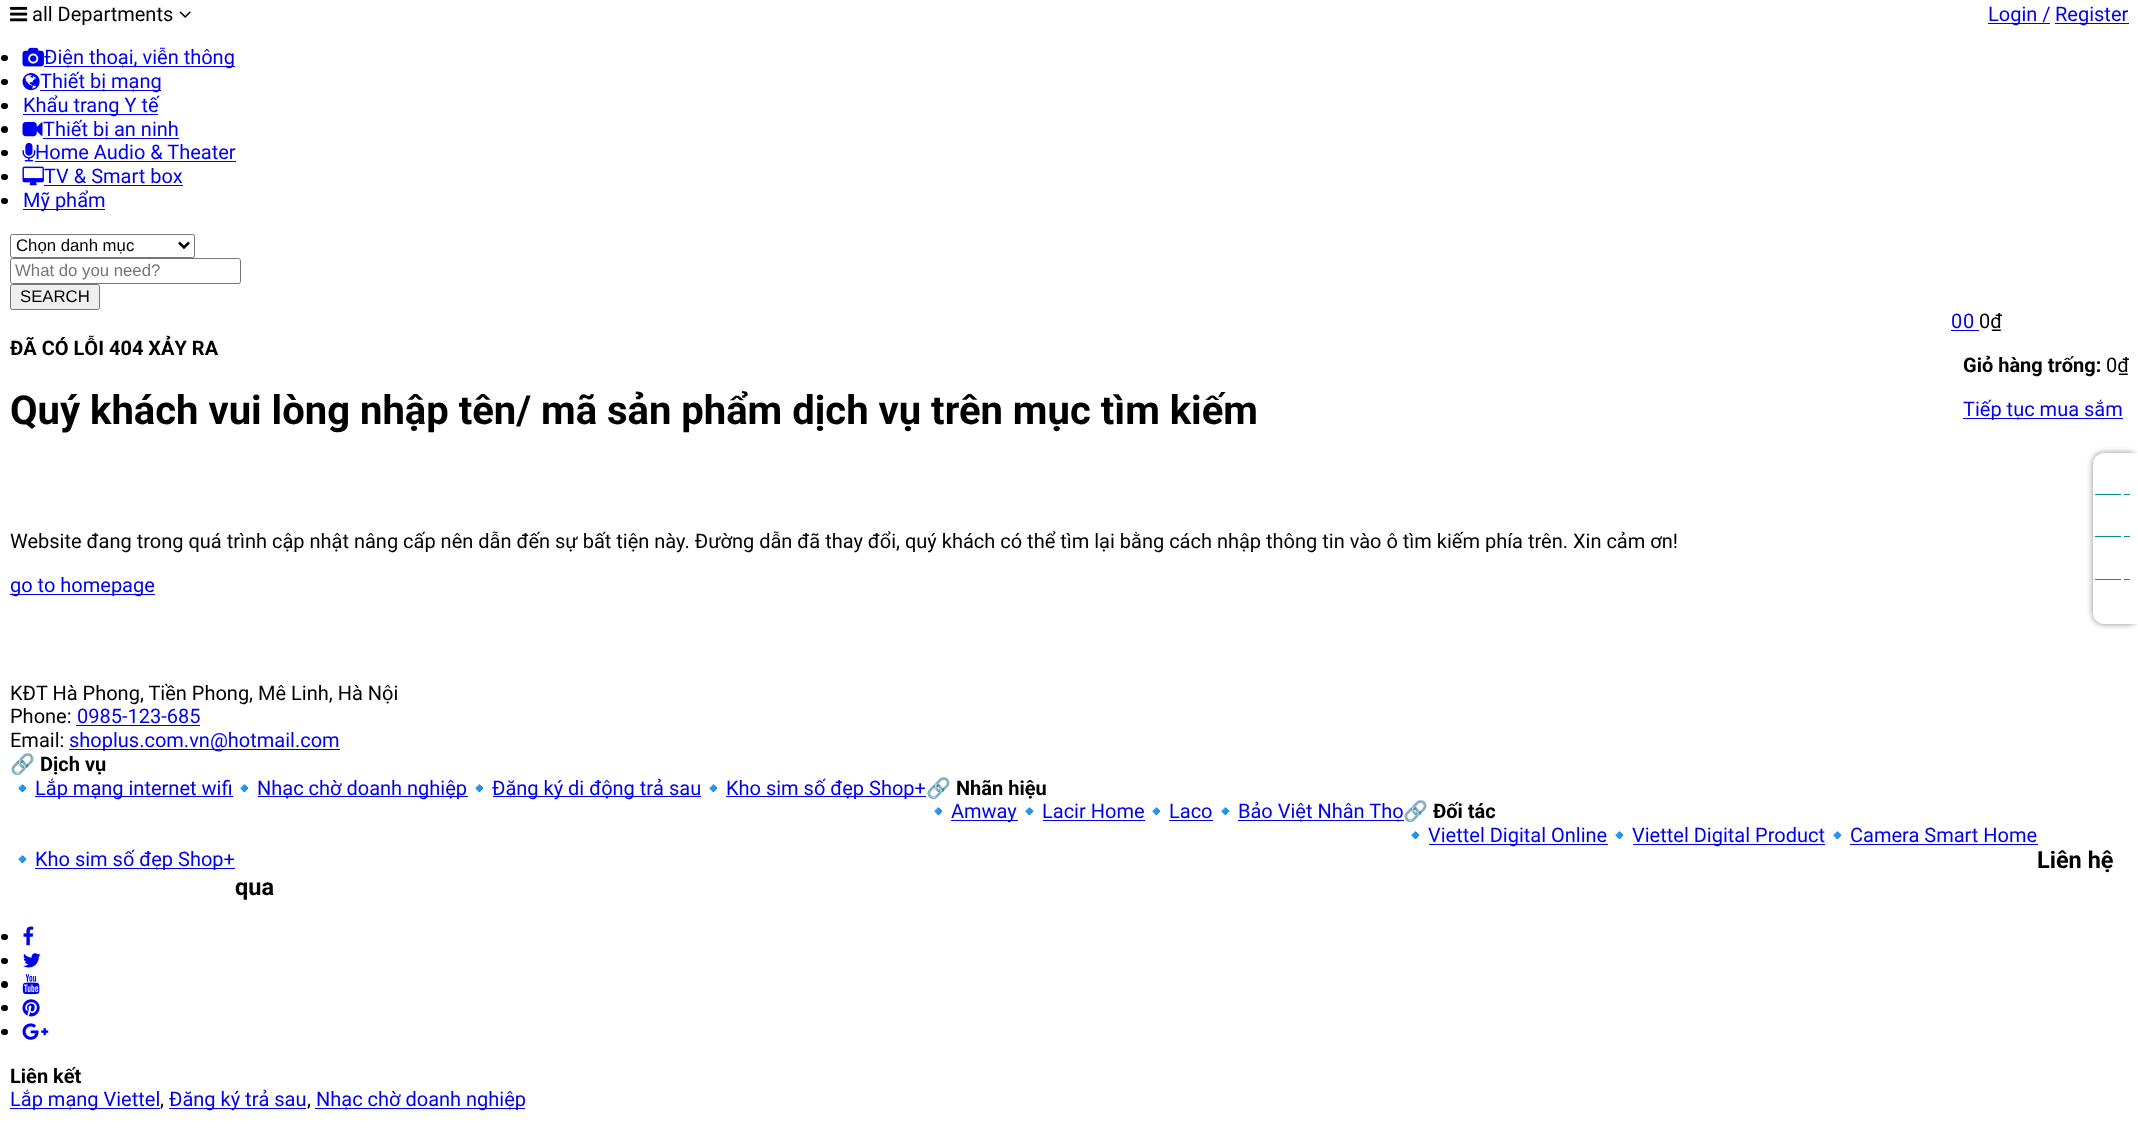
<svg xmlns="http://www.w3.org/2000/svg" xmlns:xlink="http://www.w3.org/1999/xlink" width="2138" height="1131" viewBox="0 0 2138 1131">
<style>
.cls-1{font:20px Roboto;fill:#000000}
.cls-2{font:20px Roboto;fill:#0000ee}
.cls-3{font:16.75px Liberation Sans;fill:#000000}
.cls-4{font:16.75px Liberation Sans;fill:#757575}
.cls-5{font:bold 20px Roboto;fill:#000000}
.cls-6{font:bold 40px Roboto;fill:#000000}
.cls-7{font:20px Noto Color Emoji;fill:#000000}
.cls-8{font:bold 23.5px Roboto;fill:#000000}
</style>
<rect width="100%" height="100%" fill="#ffffff"/>
<image xlink:href="image0.png" x="10" y="6" width="18" height="16"/>
<image xlink:href="image1.png" x="179" y="11" width="12" height="7"/>
<rect fill="#000000" x="1" y="55" width="7" height="6" rx="3"/>
<image xlink:href="image2.png" x="22" y="47" width="22" height="20"/>
<rect fill="#0000ee" x="44" y="66" width="191" height="1"/>
<rect fill="#000000" x="1" y="79" width="7" height="6" rx="3"/>
<image xlink:href="image3.png" x="22" y="73" width="18" height="18"/>
<rect fill="#0000ee" x="40" y="90" width="121" height="1"/>
<rect fill="#000000" x="1" y="103" width="7" height="6" rx="3"/>
<rect fill="#0000ee" x="23" y="114" width="135" height="1"/>
<circle fill="#000000" cx="4.5" cy="129.5" r="3.5"/>
<image xlink:href="image4.png" x="22" y="121" width="21" height="16"/>
<rect fill="#0000ee" x="43" y="138" width="136" height="1"/>
<rect fill="#000000" x="1" y="150" width="7" height="6" rx="3"/>
<image xlink:href="image5.png" x="22" y="142" width="14" height="20"/>
<rect fill="#0000ee" x="35" y="161" width="201" height="1"/>
<rect fill="#000000" x="1" y="174" width="7" height="6" rx="3"/>
<image xlink:href="image6.png" x="22" y="166" width="22" height="20"/>
<rect fill="#0000ee" x="44" y="185" width="139" height="1"/>
<rect fill="#000000" x="1" y="198" width="7" height="6" rx="3"/>
<rect fill="#0000ee" x="23" y="209" width="82" height="1"/>
<rect fill="none" stroke="#767676" x="10.5" y="234.5" width="184" height="23" rx="2"/>
<path fill="none" stroke="#000000" stroke-width="2.5" d="M179 242.5L184 247.5L189 242.5"/>
<rect fill="none" stroke="#767676" x="10.5" y="258.5" width="230" height="25" rx="2"/>
<rect fill="#efefef" stroke="#767676" x="10.5" y="284.5" width="89" height="25" rx="2"/>
<rect fill="#0000ee" x="1951" y="330" width="28" height="1"/>
<rect fill="#0000ee" x="1963" y="418" width="160" height="1"/>
<rect fill="#0000ee" x="1988" y="23" width="62" height="1"/>
<rect fill="#0000ee" x="2055" y="23" width="74" height="1"/>
<rect fill="#0000ee" x="10" y="594" width="145" height="1"/>
<rect fill="#0000ee" x="76" y="725" width="124" height="1"/>
<rect fill="#0000ee" x="69" y="749" width="271" height="1"/>
<rect fill="#0000ee" x="35" y="796" width="198" height="1"/>
<rect fill="#0000ee" x="258" y="796" width="210" height="1"/>
<rect fill="#0000ee" x="493" y="796" width="208" height="1"/>
<rect fill="#0000ee" x="726" y="796" width="200" height="1"/>
<rect fill="#0000ee" x="951" y="820" width="67" height="1"/>
<rect fill="#0000ee" x="1043" y="820" width="102" height="1"/>
<rect fill="#0000ee" x="1169" y="820" width="44" height="1"/>
<rect fill="#0000ee" x="1238" y="820" width="166" height="1"/>
<rect fill="#0000ee" x="1429" y="844" width="179" height="1"/>
<rect fill="#0000ee" x="1633" y="844" width="192" height="1"/>
<rect fill="#0000ee" x="1850" y="844" width="188" height="1"/>
<rect fill="#0000ee" x="35" y="868" width="200" height="1"/>
<rect fill="#000000" x="1" y="934" width="7" height="6" rx="3"/>
<image xlink:href="image7.png" x="23" y="926" width="11" height="20"/>
<rect fill="#000000" x="1" y="958" width="7" height="6" rx="3"/>
<image xlink:href="image8.png" x="23" y="953" width="18" height="15"/>
<circle fill="#000000" cx="4.5" cy="984.5" r="3.5"/>
<image xlink:href="image9.png" x="22" y="974" width="18" height="21"/>
<rect fill="#000000" x="1" y="1005" width="7" height="6" rx="3"/>
<image xlink:href="image10.png" x="22" y="999" width="18" height="18"/>
<rect fill="#000000" x="1" y="1029" width="7" height="6" rx="3"/>
<image xlink:href="image11.png" x="22" y="1023" width="27" height="17"/>
<rect fill="#0000ee" x="10" y="1108" width="150" height="1"/>
<rect fill="#0000ee" x="169" y="1108" width="137" height="1"/>
<rect fill="#0000ee" x="315" y="1108" width="210" height="1"/>
<rect fill="#898989" filter="blur(3px)" x="2093" y="453" width="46" height="171" rx="11"/>
<path fill="#ffffff" d="M2104 453H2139V624H2104C2098 624 2093 619 2093 613V464C2093 458 2098 453 2104 453Z"/>
<rect fill="#00918c" x="2095" y="494" width="26" height="1"/>
<rect fill="#00918c" x="2124" y="494" width="6" height="1"/>
<rect fill="#00918c" x="2095" y="536" width="26" height="1"/>
<rect fill="#00918c" x="2124" y="536" width="6" height="1"/>
<rect fill="#00918c" x="2095" y="579" width="26" height="1"/>
<rect fill="#00918c" x="2124" y="579" width="6" height="1"/>
<text class="cls-1" x="32" y="21">all Departments</text>
<text class="cls-2" x="44" y="64">Điện thoại, viễn thông</text>
<text class="cls-2" x="40" y="88">Thiết bị mạng</text>
<text class="cls-2" x="23" y="112">Khẩu trang Y tế</text>
<text class="cls-2" x="43" y="136">Thiết bị an ninh</text>
<text class="cls-2" x="35" y="159">Home Audio &amp; Theater</text>
<text class="cls-2" x="44" y="183">TV &amp; Smart box</text>
<text class="cls-2" x="23" y="207">Mỹ phẩm</text>
<text class="cls-3" x="16" y="251">Chọn danh mục</text>
<text class="cls-4" x="15" y="276">What do you need?</text>
<text class="cls-3" x="20" y="302">SEARCH</text>
<text class="cls-2" x="1951" y="328">0</text>
<text class="cls-2" x="1963" y="328">0</text>
<text class="cls-1" x="1979" y="328">0₫</text>
<text class="cls-5" x="1963" y="372">Giỏ hàng trống:</text>
<text class="cls-1" x="2106" y="372">0₫</text>
<text class="cls-2" x="1963" y="416">Tiếp tục mua sắm</text>
<text class="cls-2" x="1988" y="21">Login /</text>
<text class="cls-2" x="2055" y="21">Register</text>
<text class="cls-5" x="10" y="355">ĐÃ CÓ LỖI 404 XẢY RA</text>
<text class="cls-6" x="10" y="424">Quý khách vui lòng nhập tên/ mã sản phẩm dịch vụ trên mục tìm kiếm</text>
<text class="cls-1" x="10" y="548">Website đang trong quá trình cập nhật nâng cấp nên dẫn đến sự bất tiện này. Đường dẫn đã thay đổi, quý khách có thể tìm lại bằng cách nhập thông tin vào ô tìm kiếm phía trên. Xin cảm ơn!</text>
<text class="cls-2" x="10" y="592">go to homepage</text>
<text class="cls-1"><tspan x="10" y="700">KĐT Hà Phong, Tiền Phong, Mê Linh, Hà Nội</tspan><tspan x="10" y="723">Phone:</tspan></text>
<text class="cls-2" x="77" y="723">0985-123-685</text>
<text class="cls-1" x="10" y="747">Email:</text>
<text class="cls-2" x="69" y="747">shoplus.com.vn@hotmail.com</text>
<text class="cls-7" x="10" y="771">🔗</text>
<text class="cls-5" x="40" y="771">Dịch vụ</text>
<text class="cls-7" x="10" y="795">🔹</text>
<text class="cls-2" x="35" y="795">Lắp mạng internet wifi</text>
<text class="cls-7" x="232" y="795">🔹</text>
<text class="cls-2" x="257" y="795">Nhạc chờ doanh nghiệp</text>
<text class="cls-7" x="467" y="795">🔹</text>
<text class="cls-2" x="492" y="795">Đăng ký di động trả sau</text>
<text class="cls-7" x="701" y="795">🔹</text>
<text class="cls-2" x="726" y="795">Kho sim số đẹp Shop+</text>
<text class="cls-7" x="926" y="795">🔗</text>
<text class="cls-5" x="956" y="795">Nhãn hiệu</text>
<text class="cls-7" x="926" y="818">🔹</text>
<text class="cls-2" x="951" y="818">Amway</text>
<text class="cls-7" x="1017" y="818">🔹</text>
<text class="cls-2" x="1042" y="818">Lacir Home</text>
<text class="cls-7" x="1144" y="818">🔹</text>
<text class="cls-2" x="1169" y="818">Laco</text>
<text class="cls-7" x="1213" y="818">🔹</text>
<text class="cls-2" x="1238" y="818">Bảo Việt Nhân Thọ</text>
<text class="cls-7" x="1403" y="818">🔗</text>
<text class="cls-5" x="1433" y="818">Đối tác</text>
<text class="cls-7" x="1403" y="842">🔹</text>
<text class="cls-2" x="1428" y="842">Viettel Digital Online</text>
<text class="cls-7" x="1607" y="842">🔹</text>
<text class="cls-2" x="1632" y="842">Viettel Digital Product</text>
<text class="cls-7" x="1825" y="842">🔹</text>
<text class="cls-2" x="1850" y="842">Camera Smart Home</text>
<text class="cls-7" x="10" y="866">🔹</text>
<text class="cls-2" x="35" y="866">Kho sim số đẹp Shop+</text>
<text class="cls-8" x="2037" y="868">Liên hệ</text>
<text class="cls-8" x="235" y="895">qua</text>
<text class="cls-5" x="10" y="1083">Liên kết</text>
<text class="cls-2" x="10" y="1106">Lắp mạng Viettel</text>
<text class="cls-1" x="160" y="1106">,</text>
<text class="cls-2" x="169" y="1106">Đăng ký trả sau</text>
<text class="cls-1" x="307" y="1106">,</text>
<text class="cls-2" x="316" y="1106">Nhạc chờ doanh nghiệp</text>
</svg>
